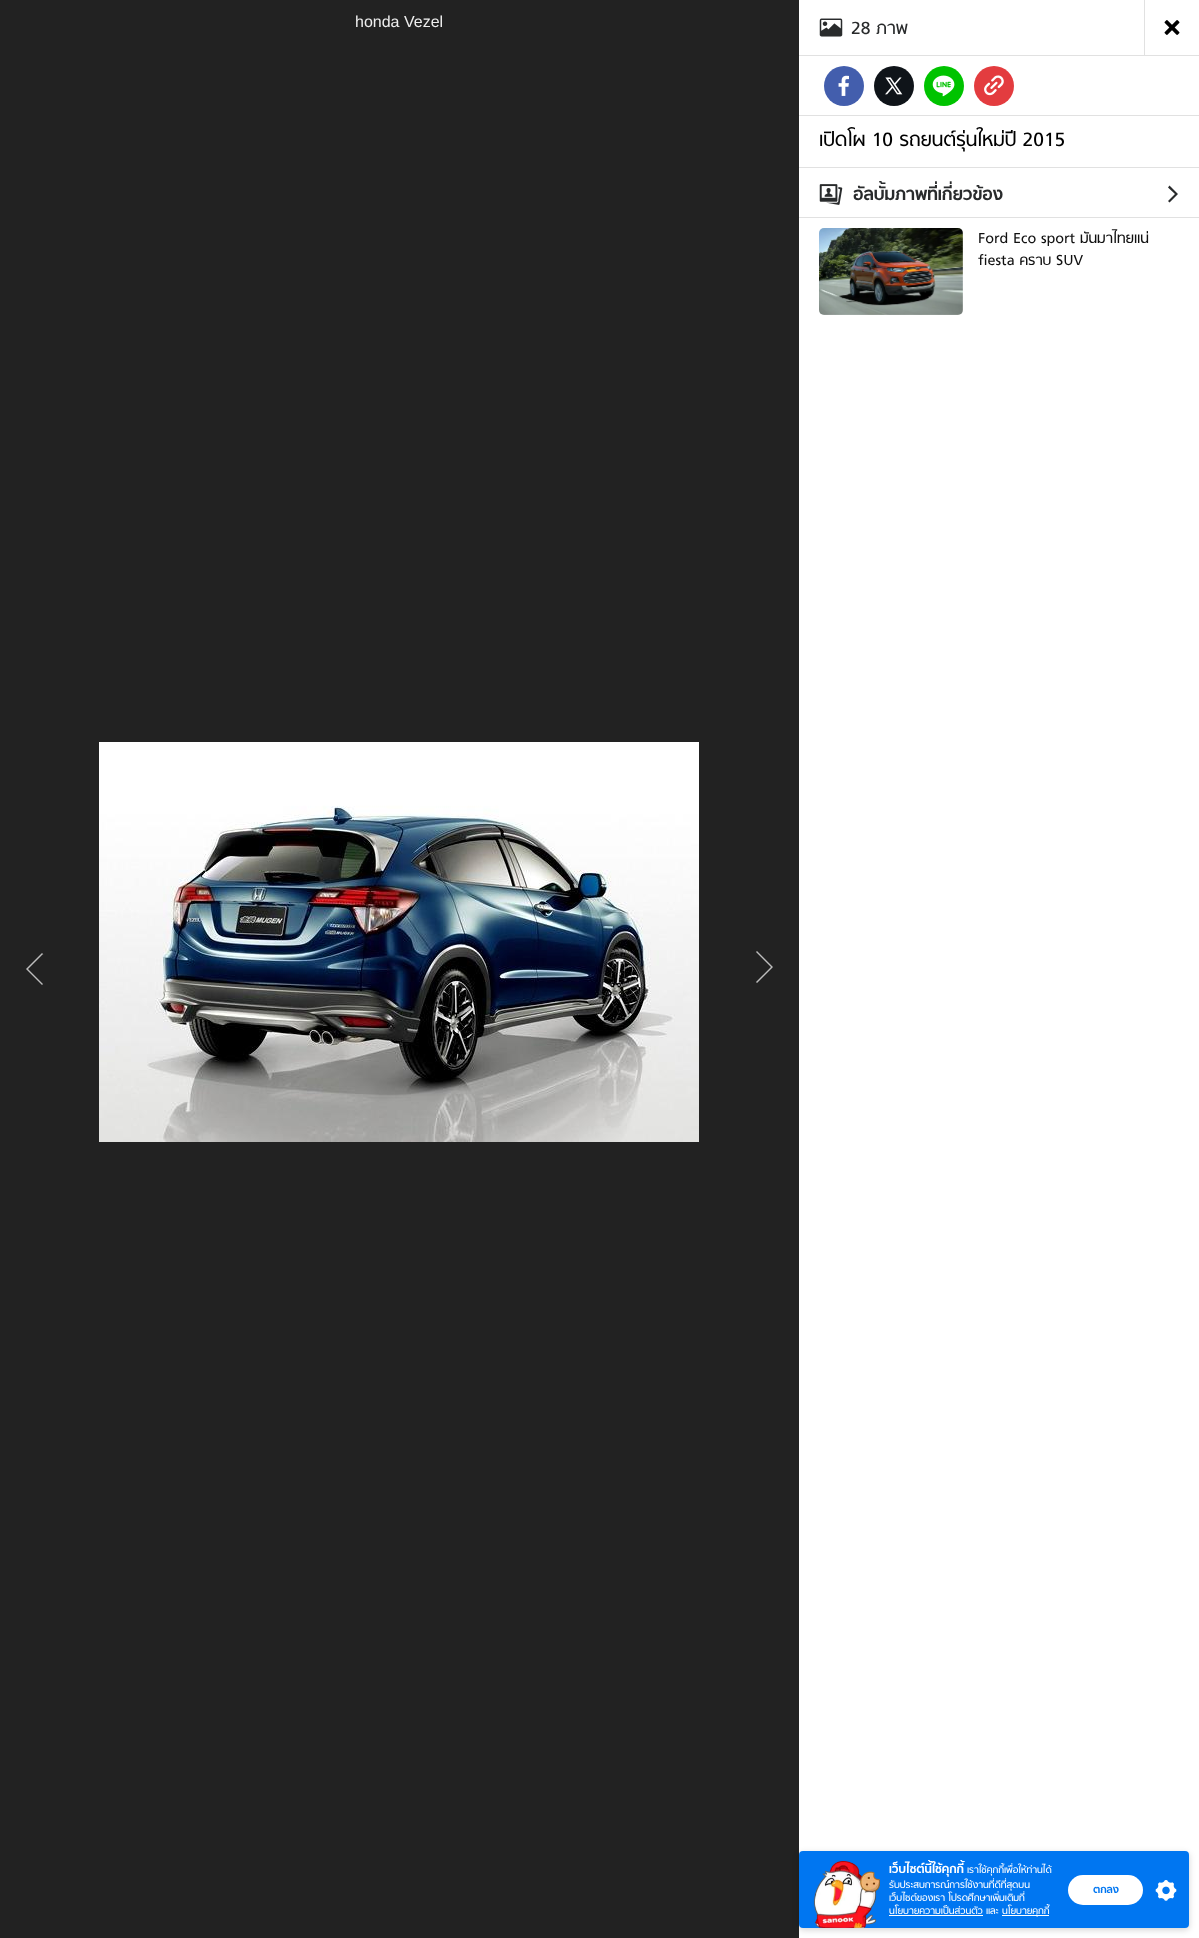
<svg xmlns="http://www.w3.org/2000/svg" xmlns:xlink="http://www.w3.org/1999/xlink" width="1199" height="1938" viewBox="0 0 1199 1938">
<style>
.cls-1{font:16px Liberation Sans;fill:#eeeeee}
.cls-2{font:20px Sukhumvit;fill:#292b2c}
.cls-3{font:22px Sukhumvit;fill:#000000}
.cls-4{font:bold 20px Sukhumvit;fill:#292b2c}
.cls-5{font:16.5px Sukhumvit;fill:#111111}
.cls-6{font:bold 13.75px Sukhumvit;fill:#ffffff}
.cls-7{font:11px Sukhumvit;fill:#ffffff}
.cls-8{font:bold 12px Sukhumvit;fill:#0076f1}
</style>
<rect width="100%" height="100%" fill="#222222"/>
<image xlink:href="image0.png" x="99" y="742" width="600" height="400"/>
<path fill="#bdbdbd" d="M44 955L42 953L26 969L42 985L43 984L28 969L43 954Z"/>
<path fill="#bdbdbd" d="M755 953L757 951L773 967L757 983L756 982L771 967L756 952Z"/>
<rect fill="#ffffff" x="799" y="0" width="400" height="1938"/>
<rect fill="#e1e1e1" x="799" y="55" width="400" height="1"/>
<image xlink:href="image1.png" x="819" y="18" width="24" height="19"/>
<rect fill="#e1e1e1" x="1144" y="0" width="1" height="55"/>
<image xlink:href="image2.png" x="1164" y="20" width="16" height="15"/>
<rect fill="#e1e1e1" x="799" y="115" width="400" height="1"/>
<circle fill="#435ead" cx="844" cy="86" r="20"/>
<image xlink:href="image3.png" x="838" y="75" width="11" height="21"/>
<circle fill="#0f1419" cx="894" cy="86" r="20"/>
<image xlink:href="image4.png" x="885" y="77" width="18" height="18"/>
<circle fill="#00c300" cx="944" cy="86" r="20"/>
<image xlink:href="image5.png" x="932" y="75" width="23" height="22"/>
<circle fill="#e33c3f" cx="994" cy="86" r="20"/>
<image xlink:href="image6.png" x="984" y="75" width="20" height="21"/>
<rect fill="#e1e1e1" x="799" y="167" width="400" height="1"/>
<rect fill="#e1e1e1" x="799" y="217" width="400" height="1"/>
<image xlink:href="image7.png" x="819" y="184" width="24" height="21"/>
<path fill="#292b2c" d="M1178 194L1169.5 185.5L1168 187.5L1175 194L1168 201L1169.5 202.5Z"/>
<image xlink:href="image8.png" x="819" y="228" width="144" height="87"/>
<rect fill="#000000" fill-opacity="0.17" filter="blur(3px)" x="799" y="1853" width="390" height="77" rx="4"/>
<rect fill="#0076f1" x="799" y="1851" width="390" height="77" rx="4"/>
<image xlink:href="image9.png" x="813" y="1861" width="67" height="67"/>
<rect fill="#ffffff" x="889" y="1915" width="94" height="1"/>
<rect fill="#ffffff" x="1002" y="1915" width="47" height="1"/>
<rect fill="#ffffff" x="1068" y="1875" width="75" height="30" rx="15"/>
<image xlink:href="image10.png" x="1155" y="1880" width="22" height="21"/>
<text class="cls-1" x="355" y="27">honda Vezel</text>
<text class="cls-2" x="851" y="34">28 ภาพ</text>
<text class="cls-3" x="819" y="146">เปิดโผ 10 รถยนต์รุ่นใหม่ปี 2015</text>
<text class="cls-4" x="853" y="200">อัลบั้มภาพที่เกี่ยวข้อง</text>
<text class="cls-5"><tspan x="978" y="243">Ford Eco sport มันมาไทยแน่</tspan><tspan x="978" y="265">fiesta คราบ SUV</tspan></text>
<text class="cls-6" x="889" y="1873">เว็บไซต์นี้ใช้คุกกี้</text>
<text class="cls-7" x="967" y="1873">เราใช้คุกกี้เพื่อให้ท่านได้</text>
<text class="cls-7"><tspan x="889" y="1888">รับประสบการณ์การใช้งานที่ดีที่สุดบน</tspan><tspan x="889" y="1901">เว็บไซต์ของเรา โปรดศึกษาเพิ่มเติมที่</tspan><tspan x="889" y="1914">นโยบายความเป็นส่วนตัว และ</tspan></text>
<text class="cls-7" x="1002" y="1914">นโยบายคุกกี้</text>
<text class="cls-8" x="1093" y="1893">ตกลง</text>
</svg>
